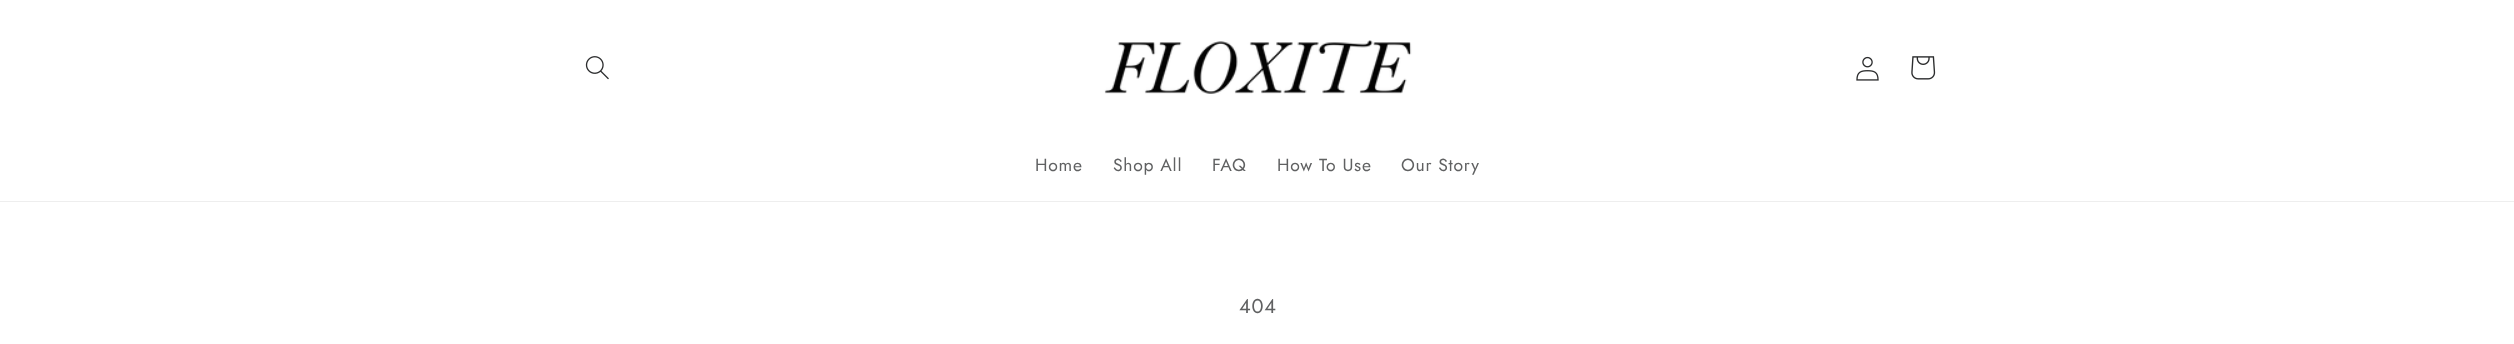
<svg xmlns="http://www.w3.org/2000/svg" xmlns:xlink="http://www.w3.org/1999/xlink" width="2514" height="344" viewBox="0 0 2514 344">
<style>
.cls-1{font:17.5px Jost;letter-spacing:0.75px;fill:#606162}
.cls-2{font:20px Jost;letter-spacing:0.75px;fill:#606162}
</style>
<rect width="100%" height="100%" fill="#ffffff"/>
<rect fill="#eeeeee" x="0" y="201" width="2514" height="1"/>
<image xlink:href="image0.png" x="585" y="56" width="24" height="24"/>
<image xlink:href="image1.png" x="1104" y="40" width="308" height="54"/>
<image xlink:href="image2.png" x="1856" y="56" width="23" height="25"/>
<image xlink:href="image3.png" x="1911" y="56" width="25" height="24"/>
<text class="cls-1" x="1035" y="171">Home</text>
<text class="cls-1" x="1113" y="171">Shop All</text>
<text class="cls-1" x="1212" y="171">FAQ</text>
<text class="cls-1" x="1277" y="171">How To Use</text>
<text class="cls-1" x="1401" y="171">Our Story</text>
<text class="cls-2" x="1239" y="313">404</text>
</svg>
